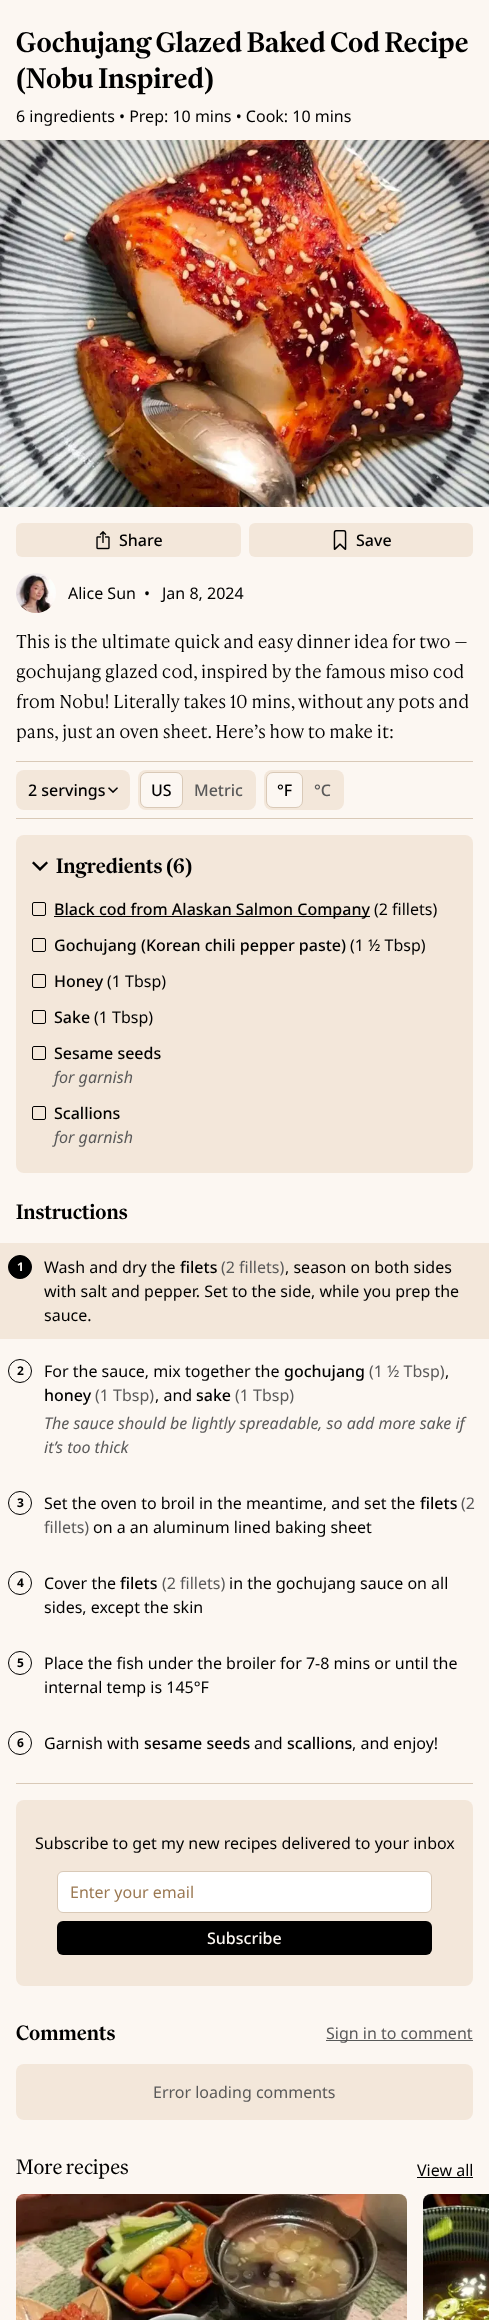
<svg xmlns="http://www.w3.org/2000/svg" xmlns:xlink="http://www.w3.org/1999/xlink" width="489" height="2320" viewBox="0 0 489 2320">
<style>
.cls-1{font:bold 30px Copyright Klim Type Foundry;fill:#000000}
.cls-2{font:bold 30px Liberation Serif;fill:#000000}
.cls-3{font:16px Noto Sans;fill:#000000}
.cls-4{font:500 16px Noto Sans;fill:#000000}
.cls-5{font:300 18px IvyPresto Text;fill:#000000}
.cls-6{font:500 16px Noto Sans;fill:#595959}
.cls-7{font:bold 22px Copyright Klim Type Foundry;fill:#000000}
.cls-8{font:bold 22px Liberation Serif;fill:#000000}
.cls-9{font:italic 16px Noto Sans;fill:#595959}
.cls-10{font:bold 12px Noto Sans;fill:#fcf7f2}
.cls-11{font:16px Noto Sans;fill:#595959}
.cls-12{font:bold 12px Noto Sans;fill:#000000}
.cls-13{font:16px Noto Sans;fill:#9b7953}
.cls-14{font:500 16px Noto Sans;fill:#fcf7f2}
.cls-15{font:22px Copyright Klim Type Foundry;fill:#000000}
</style>
<rect width="100%" height="100%" fill="#fcf7f2"/>
<image xlink:href="image0.png" x="0" y="140" width="489" height="367"/>
<rect fill="#f3e7da" x="16" y="523" width="225" height="34" rx="6"/>
<image xlink:href="image1.png" x="96" y="531" width="14" height="19"/>
<rect fill="#f3e7da" x="249" y="523" width="224" height="34" rx="6"/>
<image xlink:href="image2.png" x="333" y="530" width="14" height="20"/>
<image xlink:href="image3.png" x="16" y="573" width="40" height="40"/>
<rect fill="#d9c9b7" x="16" y="761" width="457" height="1"/>
<rect fill="#d9c9b7" x="16" y="818" width="457" height="1"/>
<rect fill="#f3e7da" x="16" y="770" width="114" height="40" rx="8"/>
<image xlink:href="image4.png" x="108" y="787" width="10" height="6"/>
<rect fill="#f3e7da" x="138" y="770" width="118" height="40" rx="8"/>
<rect fill="#fcf7f2" stroke="#d9c9b7" x="140.5" y="772.5" width="42" height="35" rx="6.5"/>
<rect fill="#f3e7da" x="264" y="770" width="80" height="40" rx="8"/>
<rect fill="#fcf7f2" stroke="#d9c9b7" x="266.5" y="772.5" width="36" height="35" rx="6.5"/>
<rect fill="#f3e7da" x="16" y="835" width="457" height="338" rx="8"/>
<image xlink:href="image5.png" x="32" y="861" width="16" height="10"/>
<rect fill="none" stroke="#000000" x="32.5" y="902.5" width="13" height="13" rx="1.5"/>
<rect fill="#000000" x="54" y="916" width="316" height="1"/>
<rect fill="none" stroke="#000000" x="32.5" y="938.5" width="13" height="13" rx="1.5"/>
<rect fill="none" stroke="#000000" x="32.5" y="974.5" width="13" height="13" rx="1.5"/>
<rect fill="none" stroke="#000000" x="32.5" y="1010.5" width="13" height="13" rx="1.5"/>
<rect fill="none" stroke="#000000" x="32.5" y="1046.5" width="13" height="13" rx="1.5"/>
<rect fill="none" stroke="#000000" x="32.5" y="1106.5" width="13" height="13" rx="1.5"/>
<rect fill="#f3e7da" x="0" y="1243" width="489" height="96"/>
<circle fill="#000000" stroke="#000000" cx="20" cy="1267" r="11.5"/>
<circle fill="none" stroke="#000000" cx="20" cy="1371" r="11.5"/>
<circle fill="none" stroke="#000000" cx="20" cy="1503" r="11.5"/>
<circle fill="none" stroke="#000000" cx="20" cy="1583" r="11.5"/>
<circle fill="none" stroke="#000000" cx="20" cy="1663" r="11.5"/>
<circle fill="none" stroke="#000000" cx="20" cy="1743" r="11.5"/>
<rect fill="#d9c9b7" x="16" y="1783" width="457" height="1"/>
<rect fill="#f3e7da" x="16" y="1800" width="457" height="186" rx="8"/>
<rect fill="#ffffff" stroke="#d9c9b7" x="57.5" y="1871.5" width="374" height="41" rx="5.5"/>
<rect fill="#000000" x="57" y="1921" width="375" height="34" rx="6"/>
<rect fill="#595959" x="326" y="2040" width="147" height="1"/>
<rect fill="#f3e7da" x="16" y="2064" width="457" height="56" rx="8"/>
<rect fill="#000000" x="417" y="2177" width="56" height="1"/>
<image xlink:href="image6.png" x="16" y="2194" width="391" height="126"/>
<image xlink:href="image7.png" x="423" y="2194" width="66" height="126"/>
<text class="cls-1" x="16" y="52">Gochujang Glazed Baked Cod Recipe</text>
<text class="cls-2" x="16" y="88">(</text>
<text class="cls-1" x="26" y="88">Nobu Inspired</text>
<text class="cls-2" x="204" y="88">)</text>
<text class="cls-3" x="16" y="122">6 ingredients • Prep: 10 mins • Cook: 10 mins</text>
<text class="cls-4" x="119" y="546">Share</text>
<text class="cls-4" x="356" y="546">Save</text>
<text class="cls-3" x="68" y="599">Alice Sun</text>
<text class="cls-3" x="144" y="599">•</text>
<text class="cls-3" x="162" y="599">Jan 8, 2024</text>
<text class="cls-5"><tspan x="16" y="648">This is the ultimate quick and easy dinner idea for two —</tspan><tspan x="16" y="678">gochujang glazed cod, inspired by the famous miso cod</tspan><tspan x="16" y="708">from Nobu! Literally takes 10 mins, without any pots and</tspan><tspan x="16" y="738">pans, just an oven sheet. Here’s how to make it:</tspan></text>
<text class="cls-4" x="28" y="796">2 servings</text>
<text class="cls-4" x="151" y="796">US</text>
<text class="cls-6" x="194" y="796">Metric</text>
<text class="cls-4" x="277" y="796">°F</text>
<text class="cls-6" x="314" y="796">°C</text>
<text class="cls-7" x="56" y="873">Ingredients</text>
<text class="cls-8" x="166" y="873">(</text>
<text class="cls-7" x="173" y="873">6</text>
<text class="cls-8" x="185" y="873">)</text>
<text class="cls-4" x="54" y="915">Black cod from Alaskan Salmon Company</text>
<text class="cls-3" x="374" y="915">(2 fillets)</text>
<text class="cls-4" x="54" y="951">Gochujang (Korean chili pepper paste)</text>
<text class="cls-3" x="350" y="951">(1 ½ Tbsp)</text>
<text class="cls-4" x="54" y="987">Honey</text>
<text class="cls-3" x="107" y="987">(1 Tbsp)</text>
<text class="cls-4" x="54" y="1023">Sake</text>
<text class="cls-3" x="94" y="1023">(1 Tbsp)</text>
<text class="cls-4" x="54" y="1059">Sesame seeds</text>
<text class="cls-9" x="54" y="1083">for garnish</text>
<text class="cls-4" x="54" y="1119">Scallions</text>
<text class="cls-9" x="54" y="1143">for garnish</text>
<text class="cls-7" x="16" y="1219">Instructions</text>
<text class="cls-10" x="17" y="1271">1</text>
<text class="cls-3" x="44" y="1273">Wash and dry the</text>
<text class="cls-4" x="180" y="1273">filets</text>
<text class="cls-11" x="221" y="1273">(2 fillets)</text>
<text class="cls-3" x="285" y="1273">, season on both sides</text>
<text class="cls-3"><tspan x="44" y="1297">with salt and pepper. Set to the side, while you prep the</tspan><tspan x="44" y="1321">sauce.</tspan></text>
<text class="cls-12" x="17" y="1375">2</text>
<text class="cls-3" x="44" y="1377">For the sauce, mix together the</text>
<text class="cls-4" x="284" y="1377">gochujang</text>
<text class="cls-11" x="369" y="1377">(1 ½ Tbsp)</text>
<text class="cls-3" x="445" y="1377">,</text>
<text class="cls-4" x="44" y="1401">honey</text>
<text class="cls-11" x="95" y="1401">(1 Tbsp)</text>
<text class="cls-3" x="155" y="1401">, and</text>
<text class="cls-4" x="196" y="1401">sake</text>
<text class="cls-11" x="235" y="1401">(1 Tbsp)</text>
<text class="cls-9"><tspan x="44" y="1429">The sauce should be lightly spreadable, so add more sake if</tspan><tspan x="44" y="1453">it’s too thick</tspan></text>
<text class="cls-12" x="17" y="1507">3</text>
<text class="cls-3" x="44" y="1509">Set the oven to broil in the meantime, and set the</text>
<text class="cls-4" x="420" y="1509">filets</text>
<text class="cls-11" x="461" y="1509">(2</text>
<text class="cls-11" x="44" y="1533">fillets)</text>
<text class="cls-3" x="93" y="1533">on a an aluminum lined baking sheet</text>
<text class="cls-12" x="17" y="1587">4</text>
<text class="cls-3" x="44" y="1589">Cover the</text>
<text class="cls-4" x="120" y="1589">filets</text>
<text class="cls-11" x="162" y="1589">(2 fillets)</text>
<text class="cls-3" x="229" y="1589">in the gochujang sauce on all</text>
<text class="cls-3" x="44" y="1613">sides, except the skin</text>
<text class="cls-12" x="17" y="1667">5</text>
<text class="cls-3"><tspan x="44" y="1669">Place the fish under the broiler for 7-8 mins or until the</tspan><tspan x="44" y="1693">internal temp is 145°F</tspan></text>
<text class="cls-12" x="17" y="1747">6</text>
<text class="cls-3" x="44" y="1749">Garnish with</text>
<text class="cls-4" x="144" y="1749">sesame seeds</text>
<text class="cls-3" x="254" y="1749">and</text>
<text class="cls-4" x="287" y="1749">scallions</text>
<text class="cls-3" x="352" y="1749">, and enjoy!</text>
<text class="cls-3" x="35" y="1849">Subscribe to get my new recipes delivered to your inbox</text>
<text class="cls-13" x="70" y="1898">Enter your email</text>
<text class="cls-14" x="207" y="1944">Subscribe</text>
<text class="cls-7" x="16" y="2040">Comments</text>
<text class="cls-11" x="326" y="2039">Sign in to comment</text>
<text class="cls-11" x="153" y="2098">Error loading comments</text>
<text class="cls-15" x="16" y="2174">More recipes</text>
<text class="cls-3" x="417" y="2176">View all</text>
</svg>
